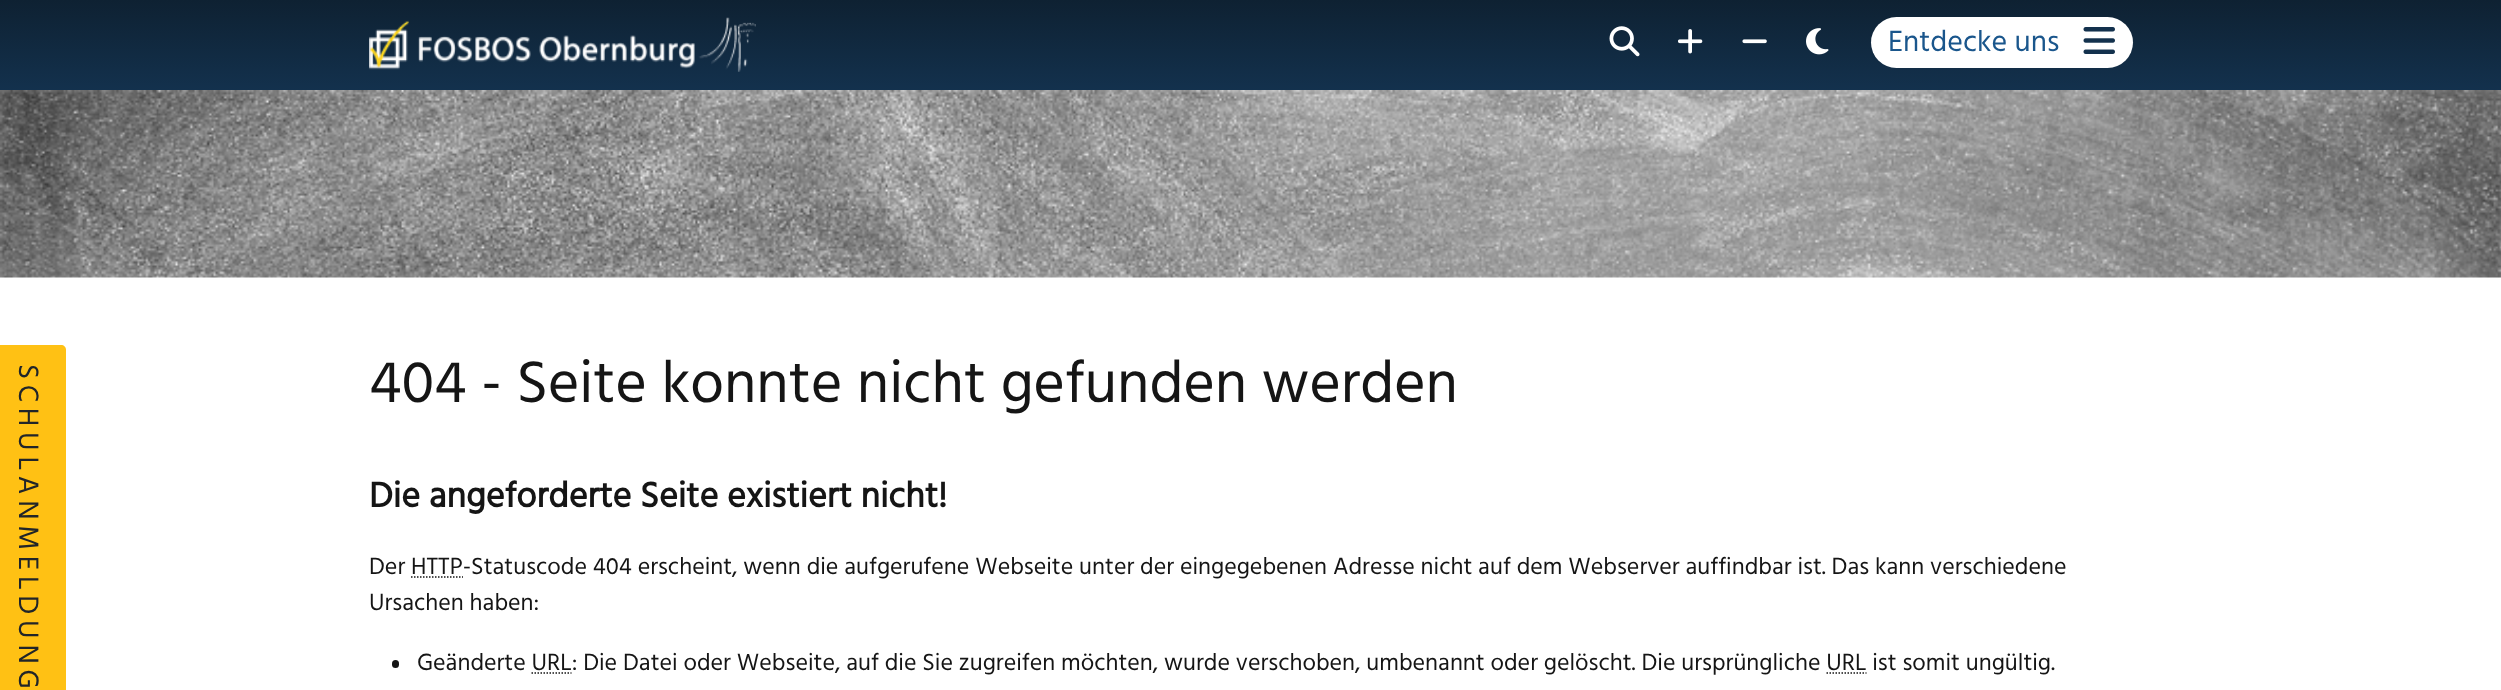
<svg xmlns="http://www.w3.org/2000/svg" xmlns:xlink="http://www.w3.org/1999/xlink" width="2501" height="690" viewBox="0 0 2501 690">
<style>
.cls-1{font:30px Hind Madurai;fill:#1a568c}
.cls-2{font:28.75px Hind Madurai;letter-spacing:5.75px;fill:#212529}
.cls-3{font:60px Hind Madurai;fill:#151515}
.cls-4{font:bold 36px Hind Madurai;fill:#151515}
.cls-5{font:24px Hind Madurai;fill:#151515}
</style>
<defs>
<linearGradient id="g1" gradientUnits="userSpaceOnUse" x1="1251" y1="0" x2="1251" y2="90"><stop offset="0" stop-color="#0e2132"/><stop offset="1" stop-color="#13314d"/></linearGradient>
</defs>
<rect width="100%" height="100%" fill="#ffffff"/>
<rect fill="url(#g1)" x="0" y="0" width="2501" height="90"/>
<image xlink:href="image0.png" x="369" y="17" width="387" height="55"/>
<image xlink:href="image1.png" x="1609" y="26" width="31" height="31"/>
<image xlink:href="image2.png" x="1678" y="29" width="25" height="25"/>
<image xlink:href="image3.png" x="1742" y="39" width="25" height="5"/>
<image xlink:href="image4.png" x="1806" y="28" width="23" height="27"/>
<rect fill="#ffffff" x="1871" y="17" width="262" height="51" rx="25.5"/>
<image xlink:href="image5.png" x="2083" y="27" width="32" height="27"/>
<image xlink:href="image6.png" x="0" y="90" width="2501" height="188"/>
<path fill="#ffc114" d="M-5 345H61C64 345 66 347 66 350V690C66 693 64 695 61 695H-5Z"/>
<path fill="none" stroke="#151515" stroke-width="1.5" stroke-dasharray="1.5 1.5" d="M411 577H463"/>
<rect fill="#151515" x="392" y="660" width="7" height="8" rx="3.5"/>
<path fill="none" stroke="#151515" stroke-width="1.5" stroke-dasharray="1.5 1.5" d="M531.5 673H571.5"/>
<path fill="none" stroke="#151515" stroke-width="1.5" stroke-dasharray="1.5 1.5" d="M1826.5 673H1866.5"/>
<text class="cls-1" x="1888" y="51">Entdecke uns</text>
<text class="cls-2" x="19" y="364" transform="rotate(90 19 364)">SCHULANMELDUNG</text>
<text class="cls-3" x="369" y="402">404 - Seite konnte nicht gefunden werden</text>
<text class="cls-4" x="369" y="507">Die angeforderte Seite existiert nicht!</text>
<text class="cls-5"><tspan x="369" y="574">Der HTTP-Statuscode 404 erscheint, wenn die aufgerufene Webseite unter der eingegebenen Adresse nicht auf dem Webserver auffindbar ist. Das kann verschiedene</tspan><tspan x="369" y="610">Ursachen haben:</tspan></text>
<text class="cls-5" x="417" y="670">Geänderte URL: Die Datei oder Webseite, auf die Sie zugreifen möchten, wurde verschoben, umbenannt oder gelöscht. Die ursprüngliche URL ist somit ungültig.</text>
</svg>
